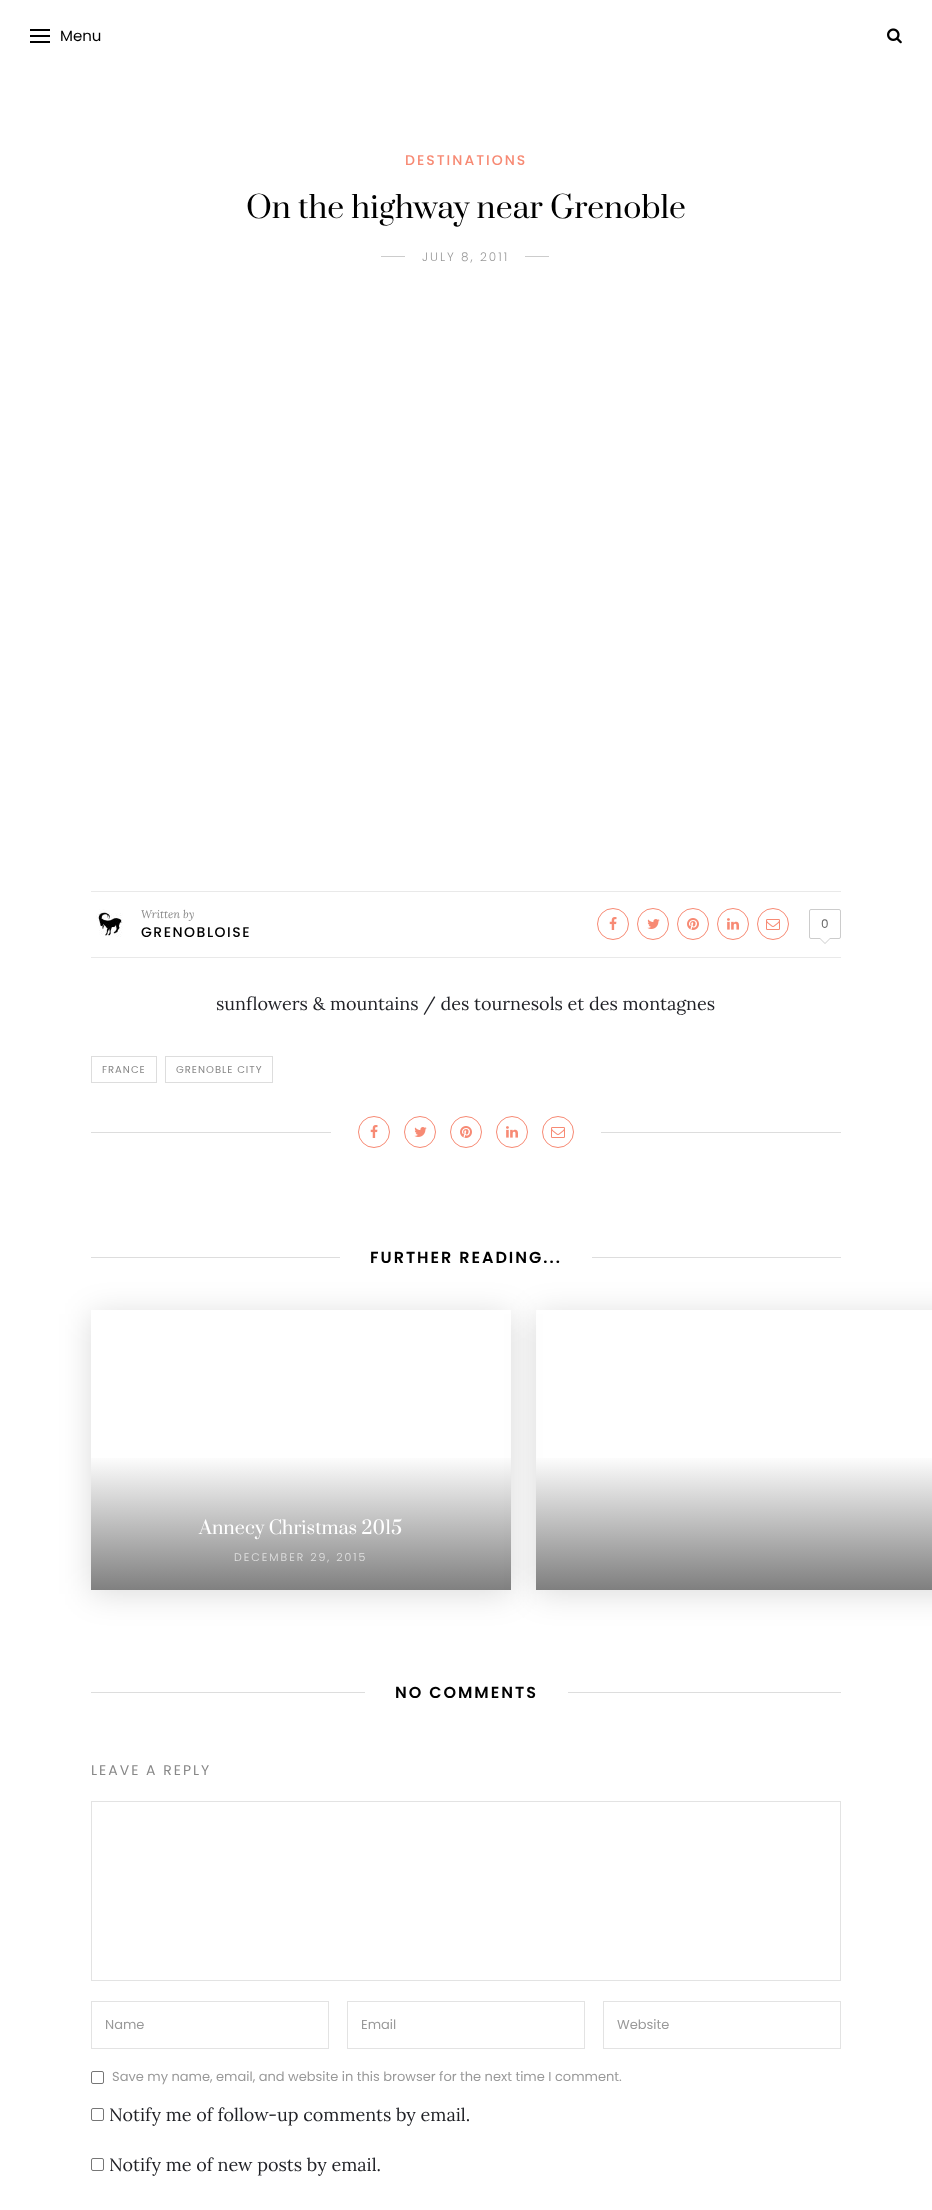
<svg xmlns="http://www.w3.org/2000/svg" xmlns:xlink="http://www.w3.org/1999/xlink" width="932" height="2210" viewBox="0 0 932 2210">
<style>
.cls-1{font:15px Poppins;fill:#000000}
.cls-2{font:500 14px Poppins;letter-spacing:2px;fill:#f78a74}
.cls-3{font:30px Prata;fill:#000000}
.cls-4{font:300 12px Poppins;letter-spacing:2px;fill:#999999}
.cls-5{font:italic 11px Lora;fill:#888888}
.cls-6{font:500 14px Poppins;letter-spacing:1.5px;fill:#000000}
.cls-7{font:12px Poppins;fill:#666666}
.cls-8{font:18px Lora;fill:#1f2025}
.cls-9{font:10px Poppins;letter-spacing:1px;fill:#888888}
.cls-10{font:600 16px Poppins;letter-spacing:2px;fill:#000000}
.cls-11{font:18px Prata;fill:#ffffff}
.cls-12{font:300 11px Poppins;letter-spacing:2px;fill:#e2e2e2}
.cls-13{font:14px Poppins;letter-spacing:2px;fill:#888888}
.cls-14{font:13px Poppins;fill:#999999}
</style>
<defs>
<clipPath id="clip1"><path d="M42 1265H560V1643H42ZM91 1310H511V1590H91Z" clip-rule="evenodd"/></clipPath>
<linearGradient id="g1" gradientUnits="userSpaceOnUse" x1="301" y1="1455" x2="301" y2="1590"><stop offset="0" stop-color="#ffffff"/><stop offset="1" stop-color="#808080"/></linearGradient>
<clipPath id="clip2"><path d="M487 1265H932V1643H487ZM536 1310H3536V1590H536Z" clip-rule="evenodd"/></clipPath>
<linearGradient id="g2" gradientUnits="userSpaceOnUse" x1="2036" y1="1455" x2="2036" y2="1590"><stop offset="0" stop-color="#ffffff"/><stop offset="1" stop-color="#7f7f7f"/></linearGradient>
</defs>
<rect width="100%" height="100%" fill="#ffffff"/>
<rect fill="#000000" x="30" y="29" width="20" height="2"/>
<rect fill="#000000" x="30" y="41" width="20" height="2"/>
<rect fill="#000000" x="30" y="35" width="20" height="2"/>
<image xlink:href="image0.png" x="887" y="28" width="15" height="16"/>
<rect fill="#cccccc" x="381" y="256" width="24" height="1"/>
<rect fill="#cccccc" x="525" y="256" width="24" height="1"/>
<rect fill="#e9e9e9" x="91" y="891" width="750" height="1"/>
<rect fill="#e9e9e9" x="91" y="957" width="750" height="1"/>
<image xlink:href="image1.png" x="96" y="909" width="27" height="28"/>
<circle fill="none" stroke="#f78a74" cx="613" cy="924" r="15.5"/>
<image xlink:href="image2.png" x="609" y="917" width="8" height="13"/>
<circle fill="none" stroke="#f78a74" cx="653" cy="924" r="15.5"/>
<image xlink:href="image3.png" x="647" y="919" width="13" height="10"/>
<circle fill="none" stroke="#f78a74" cx="693" cy="924" r="15.5"/>
<image xlink:href="image4.png" x="687" y="918" width="12" height="12"/>
<circle fill="none" stroke="#f78a74" cx="733" cy="924" r="15.5"/>
<image xlink:href="image5.png" x="727" y="918" width="12" height="12"/>
<circle fill="none" stroke="#f78a74" cx="773" cy="924" r="15.5"/>
<image xlink:href="image6.png" x="766" y="919" width="14" height="11"/>
<rect fill="none" stroke="#cccccc" x="809.5" y="909.5" width="31" height="29" rx="1.5"/>
<path fill="#cccccc" d="M819 938H831L825 944Z"/>
<path fill="#ffffff" d="M819 937H831L825 943Z"/>
<rect fill="none" stroke="#dddddd" x="91.5" y="1056.5" width="65" height="26"/>
<rect fill="none" stroke="#dddddd" x="165.5" y="1056.5" width="107" height="26"/>
<rect fill="#dddddd" x="91" y="1132" width="240" height="1"/>
<circle fill="none" stroke="#f78a74" cx="374" cy="1132" r="15.5"/>
<image xlink:href="image2.png" x="370" y="1125" width="8" height="13"/>
<circle fill="none" stroke="#f78a74" cx="420" cy="1132" r="15.5"/>
<image xlink:href="image3.png" x="414" y="1127" width="13" height="10"/>
<circle fill="none" stroke="#f78a74" cx="466" cy="1132" r="15.5"/>
<image xlink:href="image4.png" x="460" y="1126" width="12" height="12"/>
<circle fill="none" stroke="#f78a74" cx="512" cy="1132" r="15.5"/>
<image xlink:href="image5.png" x="506" y="1126" width="12" height="12"/>
<circle fill="none" stroke="#f78a74" cx="558" cy="1132" r="15.5"/>
<image xlink:href="image6.png" x="551" y="1127" width="14" height="11"/>
<rect fill="#dddddd" x="601" y="1132" width="240" height="1"/>
<rect fill="#dddddd" x="91" y="1257" width="249" height="1"/>
<rect fill="#dddddd" x="592" y="1257" width="249" height="1"/>
<g clip-path="url(#clip1)">
<rect fill="#000000" fill-opacity="0.14" filter="blur(16px)" x="91" y="1314" width="420" height="280"/>
</g>
<rect fill="url(#g1)" x="91" y="1458" width="420" height="132"/>
<g clip-path="url(#clip2)">
<rect fill="#000000" fill-opacity="0.14" filter="blur(16px)" x="536" y="1314" width="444" height="280"/>
</g>
<rect fill="url(#g2)" x="536" y="1458" width="396" height="132"/>
<rect fill="#dddddd" x="91" y="1692" width="274" height="1"/>
<rect fill="#dddddd" x="568" y="1692" width="273" height="1"/>
<rect fill="none" stroke="#e3e3e3" x="91.5" y="1801.5" width="749" height="179"/>
<rect fill="none" stroke="#e3e3e3" x="91.5" y="2001.5" width="237" height="47"/>
<rect fill="none" stroke="#e3e3e3" x="347.5" y="2001.5" width="237" height="47"/>
<rect fill="none" stroke="#e3e3e3" x="603.5" y="2001.5" width="237" height="47"/>
<rect fill="none" stroke="#767676" x="91.5" y="2071.5" width="12" height="12" rx="1.5"/>
<rect fill="none" stroke="#767676" x="91.5" y="2108.5" width="12" height="12" rx="1.5"/>
<rect fill="none" stroke="#767676" x="91.5" y="2158.5" width="12" height="12" rx="1.5"/>
<text class="cls-1" x="60" y="41">Menu</text>
<text class="cls-2" x="405" y="165">DESTINATIONS</text>
<text class="cls-3" x="246" y="218">On the highway near Grenoble</text>
<text class="cls-4" x="422" y="261">JULY 8, 2011</text>
<text class="cls-5" x="141" y="918">Written by</text>
<text class="cls-6" x="141" y="937">GRENOBLOISE</text>
<text class="cls-7" x="821" y="928">0</text>
<text class="cls-8" x="216" y="1010">sunflowers &amp; mountains / des tournesols et des montagnes</text>
<text class="cls-9" x="102" y="1073">FRANCE</text>
<text class="cls-9" x="176" y="1073">GRENOBLE CITY</text>
<text class="cls-10" x="370" y="1263">FURTHER READING...</text>
<text class="cls-11" x="199" y="1534">Annecy Christmas 2015</text>
<text class="cls-12" x="234" y="1561">DECEMBER 29, 2015</text>
<text class="cls-10" x="395" y="1698">NO COMMENTS</text>
<text class="cls-13" x="91" y="1775">LEAVE A REPLY</text>
<text class="cls-14" x="105" y="2029">Name</text>
<text class="cls-14" x="361" y="2029">Email</text>
<text class="cls-14" x="617" y="2029">Website</text>
<text class="cls-14" x="112" y="2081">Save my name, email, and website in this browser for the next time I comment.</text>
<text class="cls-8" x="109" y="2121">Notify me of follow-up comments by email.</text>
<text class="cls-8" x="109" y="2171">Notify me of new posts by email.</text>
</svg>
